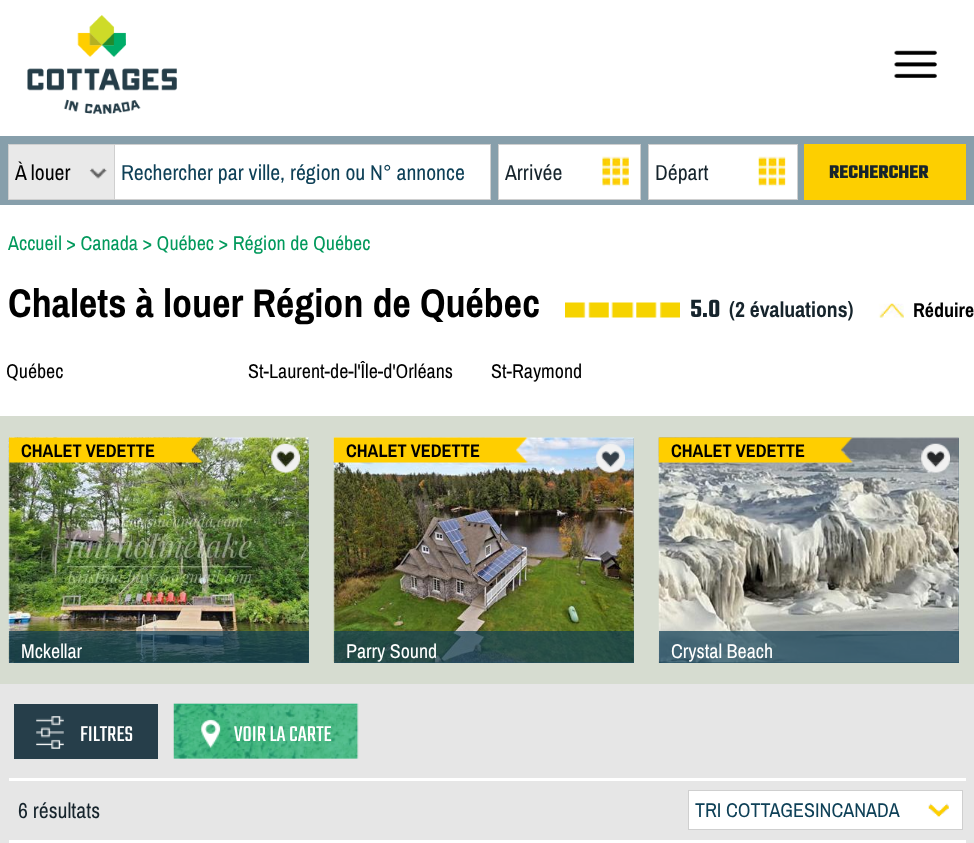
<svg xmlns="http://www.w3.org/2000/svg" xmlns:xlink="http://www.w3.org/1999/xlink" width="974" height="843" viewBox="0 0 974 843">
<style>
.cls-1{font:21.7px Archivo Narrow;fill:#000000}
.cls-2{font:21.7px Archivo Narrow;fill:#0e4057}
.cls-3{font:21.7px Archivo Narrow;fill:#16242c}
.cls-4{font:bold 20px Teko;fill:#16242c}
.cls-5{font:20px Archivo Narrow;fill:#02995c}
.cls-6{font:bold 40px Archivo Narrow;fill:#000000}
.cls-7{font:600 27px Teko;fill:#16242c}
.cls-8{font:bold 21.7px Archivo Narrow;fill:#16242c}
.cls-9{font:bold 20px Archivo Narrow;fill:#000000}
.cls-10{font:20px Archivo Narrow;fill:#000000}
.cls-11{font:bold 18.25px Archivo Narrow;fill:#000000}
.cls-12{font:20px Archivo Narrow;fill:#ffffff}
.cls-13{font:23.5px Teko;fill:#ffffff}
.cls-14{font:20px Archivo Narrow;fill:#0e4057}
</style>
<rect width="100%" height="100%" fill="#ffffff"/>
<image xlink:href="image0.png" x="27" y="15" width="150" height="99"/>
<image xlink:href="image1.png" x="894" y="50" width="43" height="28"/>
<rect fill="#879fab" x="0" y="136" width="974" height="69"/>
<rect fill="#e9e9e9" x="9" y="145" width="105" height="54"/>
<image xlink:href="image2.png" x="89" y="168" width="18" height="11"/>
<rect fill="#cfcfcf" x="8" y="144" width="106" height="1"/>
<rect fill="#cfcfcf" x="8" y="199" width="106" height="1"/>
<rect fill="#cfcfcf" x="8" y="144" width="1" height="56"/>
<rect fill="#ffffff" stroke="#cfcfcf" x="114.5" y="144.5" width="376" height="55"/>
<rect fill="#ffffff" x="499" y="145" width="141" height="54"/>
<image xlink:href="image3.png" x="602" y="156" width="27" height="31"/>
<rect fill="none" stroke="#cfcfcf" x="498.5" y="144.5" width="142" height="55"/>
<rect fill="#ffffff" x="649" y="145" width="148" height="54"/>
<image xlink:href="image4.png" x="758" y="156" width="28" height="31"/>
<rect fill="none" stroke="#cfcfcf" x="648.5" y="144.5" width="149" height="55"/>
<rect fill="#fdcf00" x="804" y="144" width="162" height="56"/>
<image xlink:href="image5.png" x="565" y="302" width="115" height="16"/>
<image xlink:href="image6.png" x="878" y="303" width="26" height="15"/>
<rect fill="#d6dcd0" x="0" y="416" width="974" height="268"/>
<rect fill="#4b6e7b" x="9" y="438" width="300" height="225"/>
<image xlink:href="image7.png" x="8" y="437" width="301" height="226"/>
<image xlink:href="image8.png" x="9" y="437" width="194" height="26"/>
<image xlink:href="image9.png" x="271" y="443" width="29" height="30"/>
<rect fill="#0f3f56" fill-opacity="0.7" x="9" y="631" width="300" height="32"/>
<rect fill="#4b6e7b" x="334" y="438" width="300" height="225"/>
<image xlink:href="image10.png" x="333" y="437" width="301" height="226"/>
<image xlink:href="image11.png" x="333" y="437" width="195" height="26"/>
<image xlink:href="image12.png" x="596" y="443" width="29" height="30"/>
<rect fill="#0f3f56" fill-opacity="0.7" x="334" y="631" width="300" height="32"/>
<rect fill="#4b6e7b" x="659" y="438" width="300" height="225"/>
<image xlink:href="image13.png" x="658" y="437" width="301" height="226"/>
<image xlink:href="image14.png" x="658" y="437" width="195" height="26"/>
<image xlink:href="image15.png" x="921" y="443" width="29" height="30"/>
<rect fill="#0f3f56" fill-opacity="0.7" x="659" y="631" width="300" height="32"/>
<rect fill="#e6e6e6" x="0" y="684" width="974" height="159"/>
<rect fill="#263e4a" x="14" y="704" width="144" height="55"/>
<image xlink:href="image16.png" x="36" y="716" width="28" height="33"/>
<image xlink:href="image17.png" x="173" y="703" width="186" height="56"/>
<image xlink:href="image18.png" x="201" y="719" width="20" height="29"/>
<rect fill="#ffffff" x="9" y="778" width="957" height="3"/>
<rect fill="#ffffff" x="689" y="791" width="273" height="38"/>
<image xlink:href="image19.png" x="928" y="803" width="21" height="14"/>
<rect fill="none" stroke="#cfcfcf" x="688.5" y="790.5" width="274" height="39"/>
<rect fill="#ffffff" x="9" y="840" width="957" height="3"/>
<text class="cls-1" x="15" y="180">À louer</text>
<text class="cls-2" x="121" y="180">Rechercher par ville, région ou N° annonce</text>
<text class="cls-3" x="505" y="180">Arrivée</text>
<text class="cls-3" x="655" y="180">Départ</text>
<text class="cls-4" x="829" y="178">RECHERCHER</text>
<text class="cls-5" x="8" y="250">Accueil &gt; Canada &gt; Québec &gt; Région de Québec</text>
<text class="cls-6" x="8" y="317">Chalets à louer Région de Québec</text>
<text class="cls-7" x="690" y="317">5.0</text>
<text class="cls-8" x="729" y="317">(2 évaluations)</text>
<text class="cls-9" x="913" y="317">Réduire</text>
<text class="cls-10" x="6" y="378">Québec</text>
<text class="cls-10" x="248" y="378">St-Laurent-de-l'Île-d'Orléans</text>
<text class="cls-10" x="491" y="378">St-Raymond</text>
<text class="cls-11" x="21" y="457">CHALET VEDETTE</text>
<text class="cls-12" x="21" y="658">Mckellar</text>
<text class="cls-11" x="346" y="457">CHALET VEDETTE</text>
<text class="cls-12" x="346" y="658">Parry Sound</text>
<text class="cls-11" x="671" y="457">CHALET VEDETTE</text>
<text class="cls-12" x="671" y="658">Crystal Beach</text>
<text class="cls-13" x="80" y="741">FILTRES</text>
<text class="cls-13" x="234" y="741">VOIR LA CARTE</text>
<text class="cls-3" x="18" y="818">6 résultats</text>
<text class="cls-14" x="695" y="817">TRI COTTAGESINCANADA</text>
</svg>
